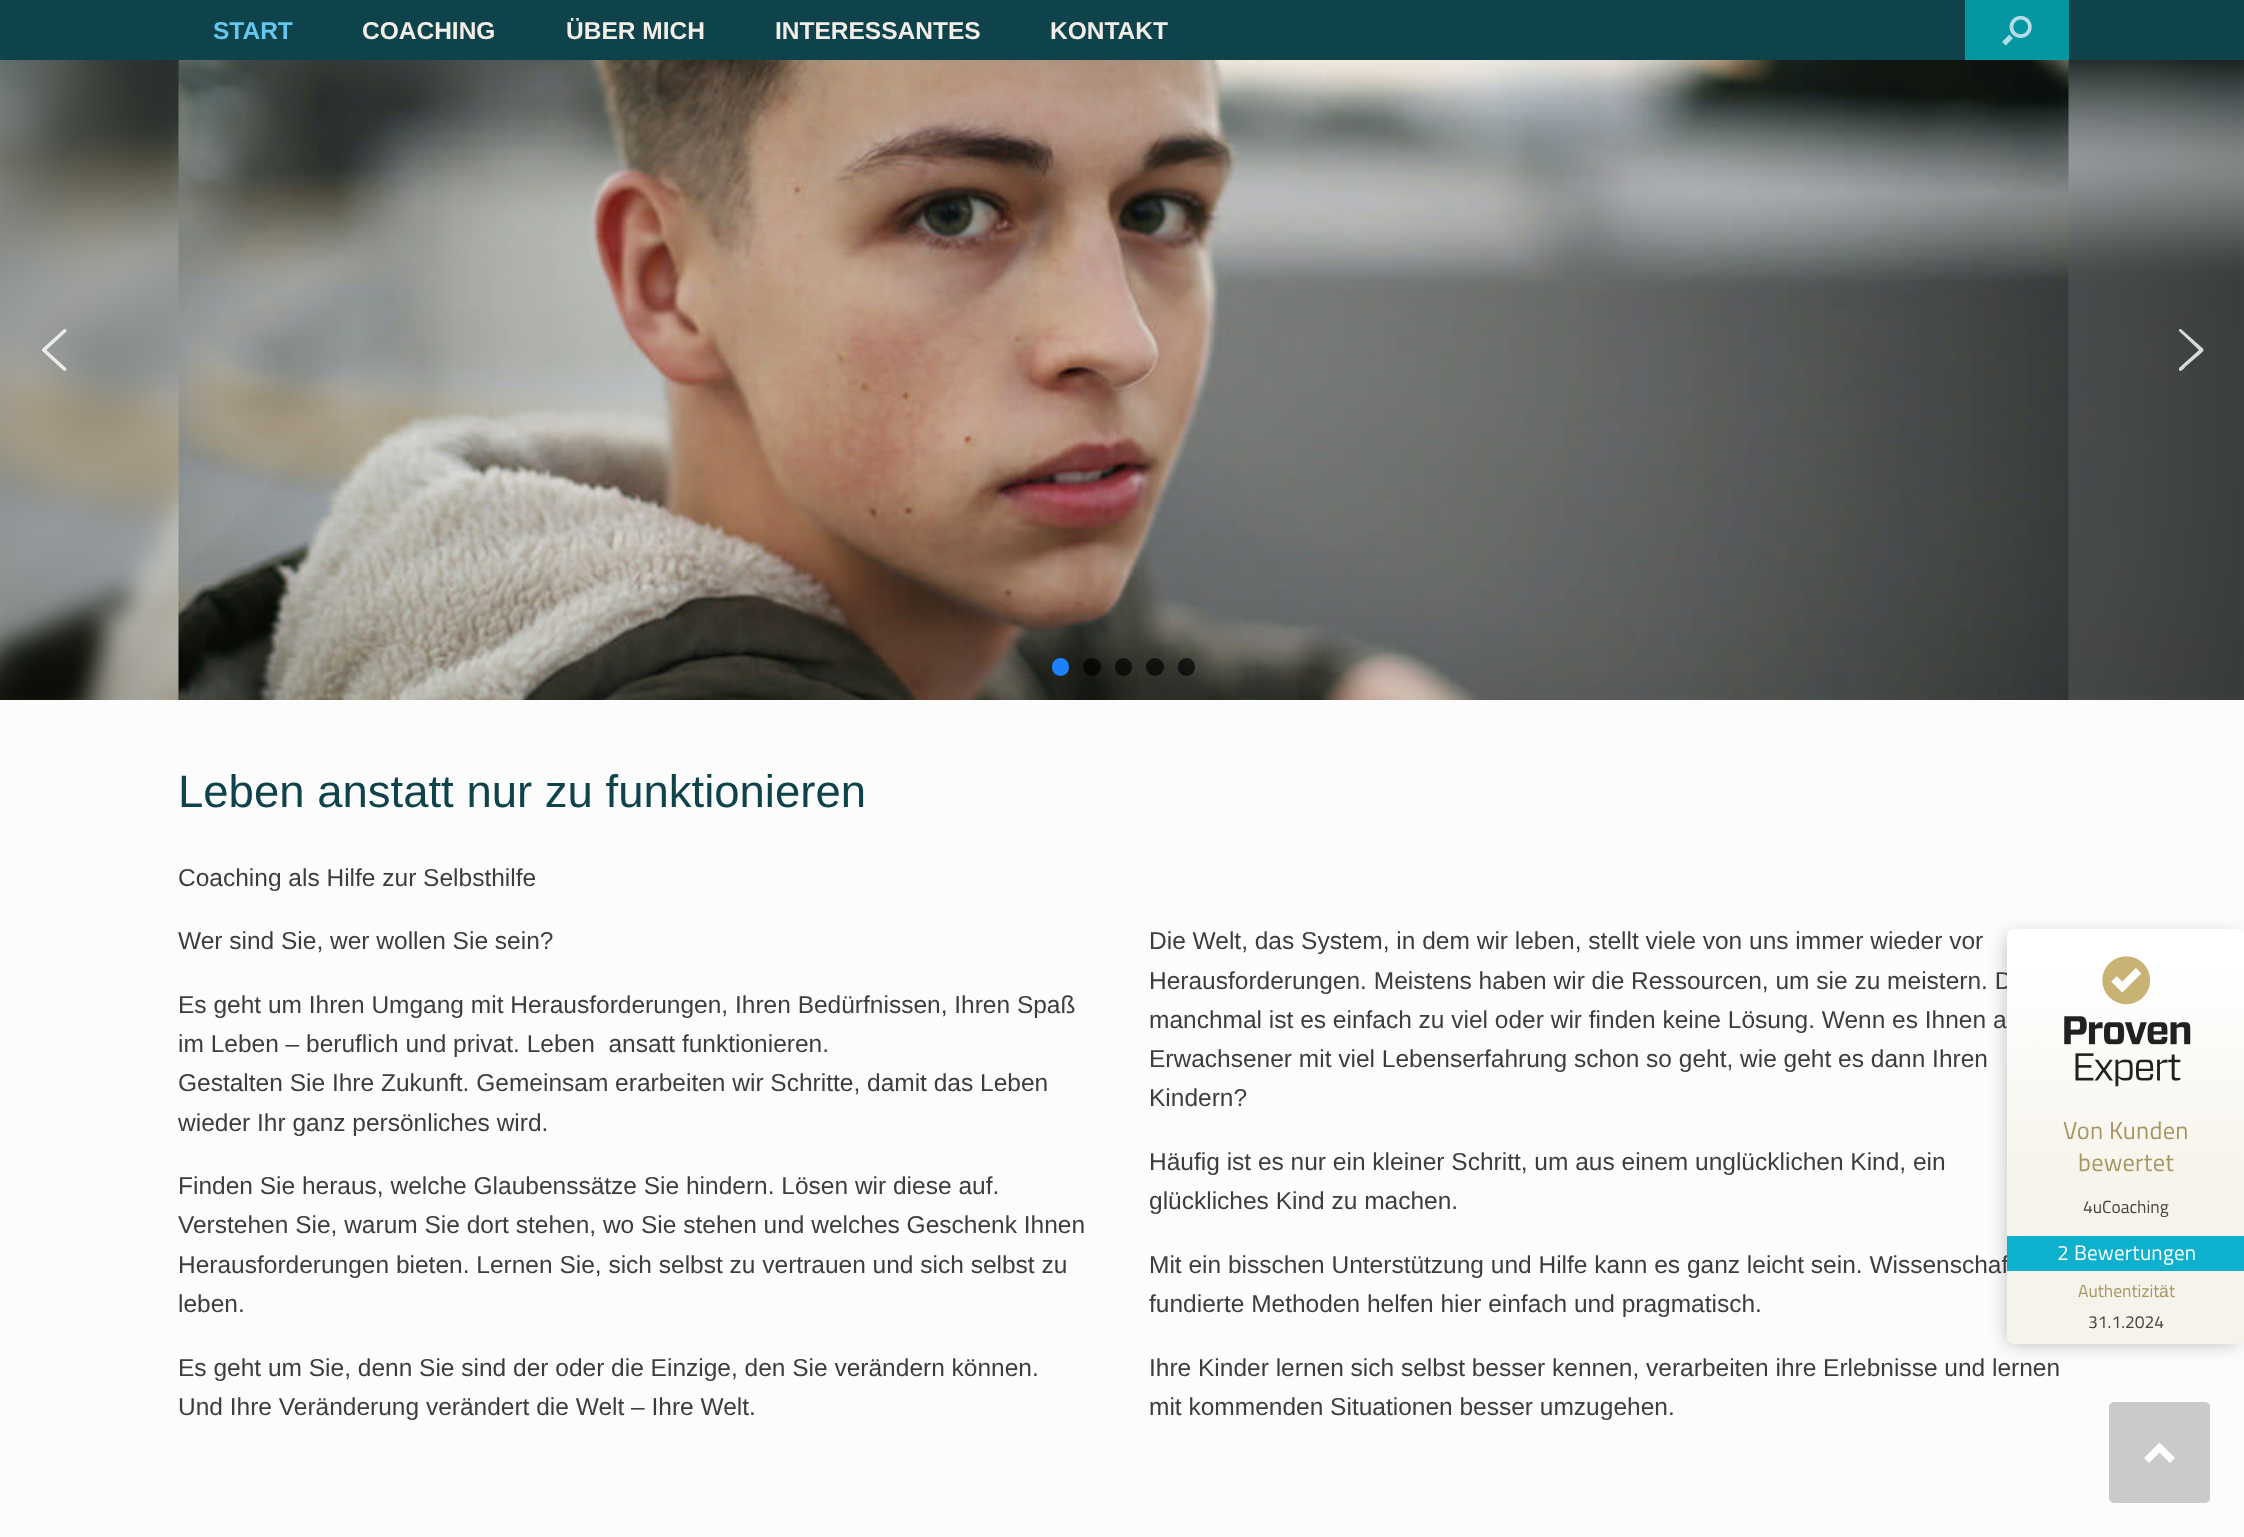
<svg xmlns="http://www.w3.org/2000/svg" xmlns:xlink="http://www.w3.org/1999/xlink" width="2244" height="1537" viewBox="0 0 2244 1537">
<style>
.cls-1{font:bold 24.5px Liberation Sans;fill:#66c7ee}
.cls-2{font:bold 24.5px Liberation Sans;fill:#f2ede7}
.cls-3{font:45.5px Liberation Sans;fill:#0e434b}
.cls-4{font:24.5px Liberation Sans;fill:#3d3d3d}
.cls-5{font:24.5px Titillium Web;letter-spacing:0.25px;fill:#a79563}
.cls-6{font:17.5px Titillium Web;fill:#444444}
.cls-7{font:21px Titillium Web;letter-spacing:0.25px;fill:#ffffff}
.cls-8{font:17.5px Titillium Web;fill:#a79563}
.cls-9{font:17.5px Liberation Sans;fill:#a79563}
</style>
<defs>
<linearGradient id="g1" gradientUnits="userSpaceOnUse" x1="2126" y1="1344" x2="2126" y2="929"><stop offset="0.37" stop-color="#f6f3ea"/><stop offset="0.9" stop-color="#ffffff"/></linearGradient>
</defs>
<rect width="100%" height="100%" fill="#ffffff"/>
<rect fill="#0e434b" x="0" y="0" width="2244" height="60"/>
<rect fill="#0497a1" x="1965" y="0" width="104" height="60"/>
<image xlink:href="image0.png" x="2002" y="15" width="30" height="31"/>
<image xlink:href="image1.png" x="0" y="60" width="2244" height="640"/>
<image xlink:href="image2.png" x="178" y="60" width="1891" height="640"/>
<image xlink:href="image3.png" x="42" y="329" width="25" height="42"/>
<path fill="#ffffff" fill-opacity="0.8" fill-rule="evenodd" d="M2182 330C2181 328 2178 329 2179 331L2199 350L2179 368V370C2180 373 2185 368 2185 367L2199 355C2205 350 2205 350 2199 345Z"/>
<rect fill="#1d81f9" x="1052" y="658" width="17" height="18" rx="8.5"/>
<circle fill="#000000" fill-opacity="0.67" cx="1092" cy="667" r="9"/>
<rect fill="#000000" fill-opacity="0.67" x="1115" y="658" width="17" height="18" rx="8.5"/>
<circle fill="#000000" fill-opacity="0.67" cx="1155" cy="667" r="9"/>
<rect fill="#000000" fill-opacity="0.67" x="1178" y="658" width="17" height="18" rx="8.5"/>
<rect fill="#fcfcfc" x="0" y="700" width="2244" height="837"/>
<rect fill="#000000" fill-opacity="0.25" filter="blur(9px)" x="2007" y="936" width="231" height="408" rx="4"/>
<rect fill="#cacaca" x="2109" y="1402" width="101" height="101" rx="5"/>
<path fill="#fdfdfd" d="M2175 1458L2159.5 1442.5L2144 1458L2149 1463L2159.5 1452.5L2170 1463Z"/>
<text class="cls-1" x="213" y="39">START</text>
<text class="cls-2" x="362" y="39">COACHING</text>
<text class="cls-2" x="566" y="39">ÜBER MICH</text>
<text class="cls-2" x="775" y="39">INTERESSANTES</text>
<text class="cls-2" x="1050" y="39">KONTAKT</text>
<text class="cls-3" x="178" y="807">Leben anstatt nur zu funktionieren</text>
<text class="cls-4" x="178" y="886">Coaching als Hilfe zur Selbsthilfe</text>
<text class="cls-4" x="178" y="949">Wer sind Sie, wer wollen Sie sein?</text>
<text class="cls-4" xml:space="preserve"><tspan x="178" y="1013">Es geht um Ihren Umgang mit Herausforderungen, Ihren Bedürfnissen, Ihren Spaß</tspan><tspan x="178" y="1052">im Leben – beruflich und privat. Leben  ansatt funktionieren.</tspan><tspan x="178" y="1091">Gestalten Sie Ihre Zukunft. Gemeinsam erarbeiten wir Schritte, damit das Leben</tspan><tspan x="178" y="1131">wieder Ihr ganz persönliches wird.</tspan></text>
<text class="cls-4"><tspan x="178" y="1194">Finden Sie heraus, welche Glaubenssätze Sie hindern. Lösen wir diese auf.</tspan><tspan x="178" y="1233">Verstehen Sie, warum Sie dort stehen, wo Sie stehen und welches Geschenk Ihnen</tspan><tspan x="178" y="1273">Herausforderungen bieten. Lernen Sie, sich selbst zu vertrauen und sich selbst zu</tspan><tspan x="178" y="1312">leben.</tspan></text>
<text class="cls-4"><tspan x="178" y="1376">Es geht um Sie, denn Sie sind der oder die Einzige, den Sie verändern können.</tspan><tspan x="178" y="1415">Und Ihre Veränderung verändert die Welt – Ihre Welt.</tspan></text>
<text class="cls-4"><tspan x="1149" y="949">Die Welt, das System, in dem wir leben, stellt viele von uns immer wieder vor</tspan><tspan x="1149" y="989">Herausforderungen. Meistens haben wir die Ressourcen, um sie zu meistern. D</tspan><tspan x="1149" y="1028">manchmal ist es einfach zu viel oder wir finden keine Lösung. Wenn es Ihnen a</tspan><tspan x="1149" y="1067">Erwachsener mit viel Lebenserfahrung schon so geht, wie geht es dann Ihren</tspan><tspan x="1149" y="1106">Kindern?</tspan></text>
<text class="cls-4"><tspan x="1149" y="1170">Häufig ist es nur ein kleiner Schritt, um aus einem unglücklichen Kind, ein</tspan><tspan x="1149" y="1209">glückliches Kind zu machen.</tspan></text>
<text class="cls-4"><tspan x="1149" y="1273">Mit ein bisschen Unterstützung und Hilfe kann es ganz leicht sein. Wissenschaf</tspan><tspan x="1149" y="1312">fundierte Methoden helfen hier einfach und pragmatisch.</tspan></text>
<text class="cls-4"><tspan x="1149" y="1376">Ihre Kinder lernen sich selbst besser kennen, verarbeiten ihre Erlebnisse und lernen</tspan><tspan x="1149" y="1415">mit kommenden Situationen besser umzugehen.</tspan></text>
<rect fill="url(#g1)" x="2007" y="929" width="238" height="415" rx="7"/>
<image xlink:href="image4.png" x="2064" y="956" width="127" height="131"/>
<text class="cls-5" x="2063" y="1139">Von Kunden</text>
<text class="cls-5" x="2078" y="1171">bewertet</text>
<text class="cls-6" x="2083" y="1213">4uCoaching</text>
<rect fill="#0db1cd" x="2007" y="1236" width="237" height="35"/>
<text class="cls-7" x="2057" y="1260">2 Bewertungen</text>
<text class="cls-8" x="2078" y="1297">Authentizit</text>
<text class="cls-9" x="2159" y="1297">ä</text>
<text class="cls-8" x="2169" y="1297">t</text>
<text class="cls-6" x="2088" y="1328">31.1.2024</text>
</svg>
